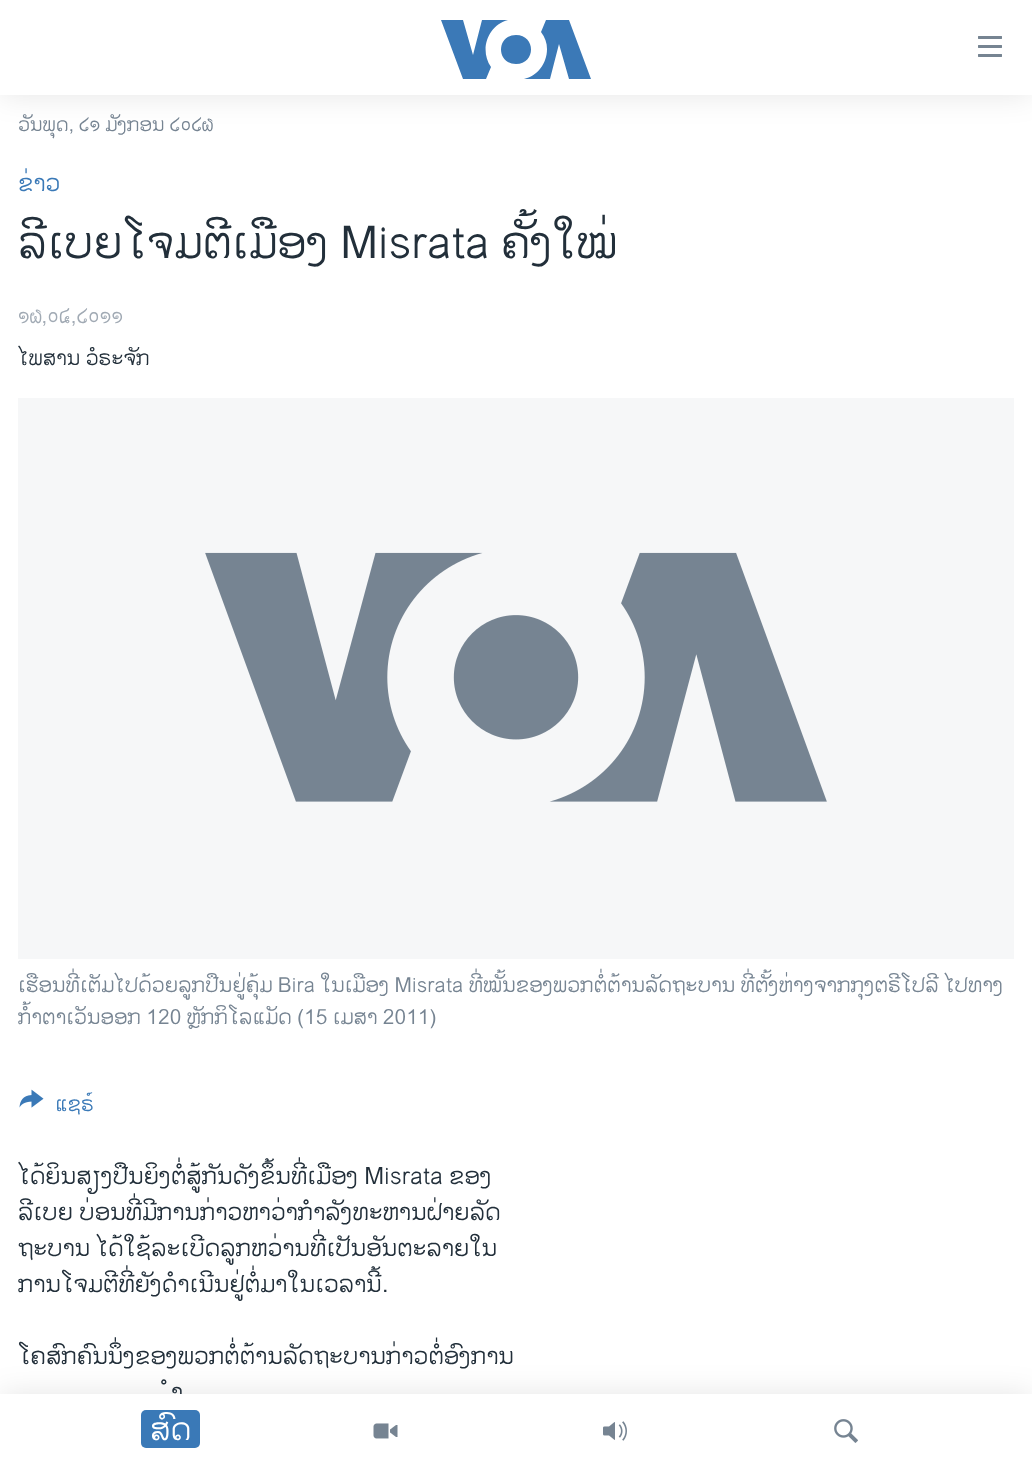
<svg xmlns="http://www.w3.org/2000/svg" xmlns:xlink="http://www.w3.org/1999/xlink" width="1032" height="1468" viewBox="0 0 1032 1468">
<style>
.cls-1{font:19.5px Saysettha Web;fill:#768492}
.cls-2{font:24px Saysettha Web;fill:#3a79b7}
.cls-3{font:45.6px Saysettha Web;fill:#222f3a}
.cls-4{font:21px Saysettha Web;fill:#a1aab4}
.cls-5{font:21px Saysettha Web;fill:#222f3a}
.cls-6{font:21px Saysettha Web;fill:#768492}
.cls-7{font:21px Saysettha Web;fill:#3a79b7}
.cls-8{font:24px Saysettha Web;fill:#222f3a}
.cls-9{font:32px Saysettha Web;fill:#ffffff}
</style>
<rect width="100%" height="100%" fill="#ffffff"/>
<rect fill="#f6f7f8" x="18" y="398" width="996" height="561"/>
<image xlink:href="image0.png" x="205" y="552" width="622" height="250"/>
<image xlink:href="image1.png" x="19" y="1089" width="25" height="19"/>
<rect fill="#000000" fill-opacity="0.1" filter="blur(15px)" x="0" y="0" width="1032" height="95"/>
<rect fill="#ffffff" x="0" y="0" width="1032" height="95"/>
<path fill="#3b79b7" d="M491 67L486 79H463L441 20H463L473 55L482 20H508C488 25 479 50 491 67ZM516 35C496 35 496 64 516 64C536 64 536 35 516 35ZM547 49C547 64 537 76 524 79H550L559 44L569 79H591L569 20H546L541 32C545 37 547 43 547 49Z"/>
<image xlink:href="image2.png" x="978" y="36" width="24" height="21"/>
<rect fill="#000000" fill-opacity="0.1" filter="blur(15px)" x="0" y="1394" width="1032" height="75"/>
<text class="cls-1" x="18" y="131">ວັນພຸດ, ໒໑ ມັງກອນ ໒໐໒໖</text>
<text class="cls-2" x="18" y="191">ຂ່າວ</text>
<text class="cls-3" x="18" y="258">ລີເບຍໂຈມຕີເມືອງ Misrata ຄັ້ງໃໝ່</text>
<text class="cls-4" x="18" y="323">໑໖,໐໔,໒໐໑໑</text>
<text class="cls-5" x="18" y="365">ໄພສານ ວໍຣະຈັກ</text>
<text class="cls-6"><tspan x="18" y="992">ເຮືອນທີ່ເຕັມໄປດ້ວຍລູກປືນຢູ່ຄຸ້ມ Bira ໃນເມືອງ Misrata ທີ່ໝັ້ນຂອງພວກຕໍ່ຕ້ານລັດຖະບານ ທີ່ຕັ້ງຫ່າງຈາກກຸງຕຣີໂປລີ ໄປທາງ</tspan><tspan x="18" y="1024">ກໍ້າຕາເວັນອອກ 120 ຫຼັກກິໂລແມັດ (15 ເມສາ 2011)</tspan></text>
<text class="cls-7" x="55" y="1111">ແຊຣ໌</text>
<text class="cls-8"><tspan x="18" y="1184">ໄດ້ຍິນສຽງປືນຍິງຕໍ່ສູ້ກັນດັງຂຶ້ນທີ່ເມືອງ Misrata ຂອງ</tspan><tspan x="18" y="1220">ລີເບຍ ບ່ອນທີ່ມີການກ່າວຫາວ່າກຳລັງທະຫານຝ່າຍລັດ</tspan><tspan x="18" y="1256">ຖະບານ ໄດ້ໃຊ້ລະເບີດລູກຫວ່ານທີ່ເປັນອັນຕະລາຍໃນ</tspan><tspan x="18" y="1292">ການໂຈມຕີທີ່ຍັງດຳເນີນຢູ່ຕໍ່ມາໃນເວລານີ້.</tspan></text>
<text class="cls-8" x="18" y="1364">ໂຄສົກຄົນນຶ່ງຂອງພວກຕໍ່ຕ້ານລັດຖະບານກ່າວຕໍ່ອົງການ</text>
<text class="cls-8" x="171" y="1400">ຳ</text>
<rect fill="#ffffff" x="0" y="1394" width="1032" height="74"/>
<rect fill="#3a79b7" x="141" y="1410" width="59" height="38" rx="5"/>
<text class="cls-9" x="150" y="1440">ສົດ</text>
<image xlink:href="image3.png" x="373" y="1423" width="25" height="16"/>
<image xlink:href="image4.png" x="603" y="1421" width="24" height="20"/>
<image xlink:href="image5.png" x="834" y="1419" width="24" height="24"/>
</svg>
